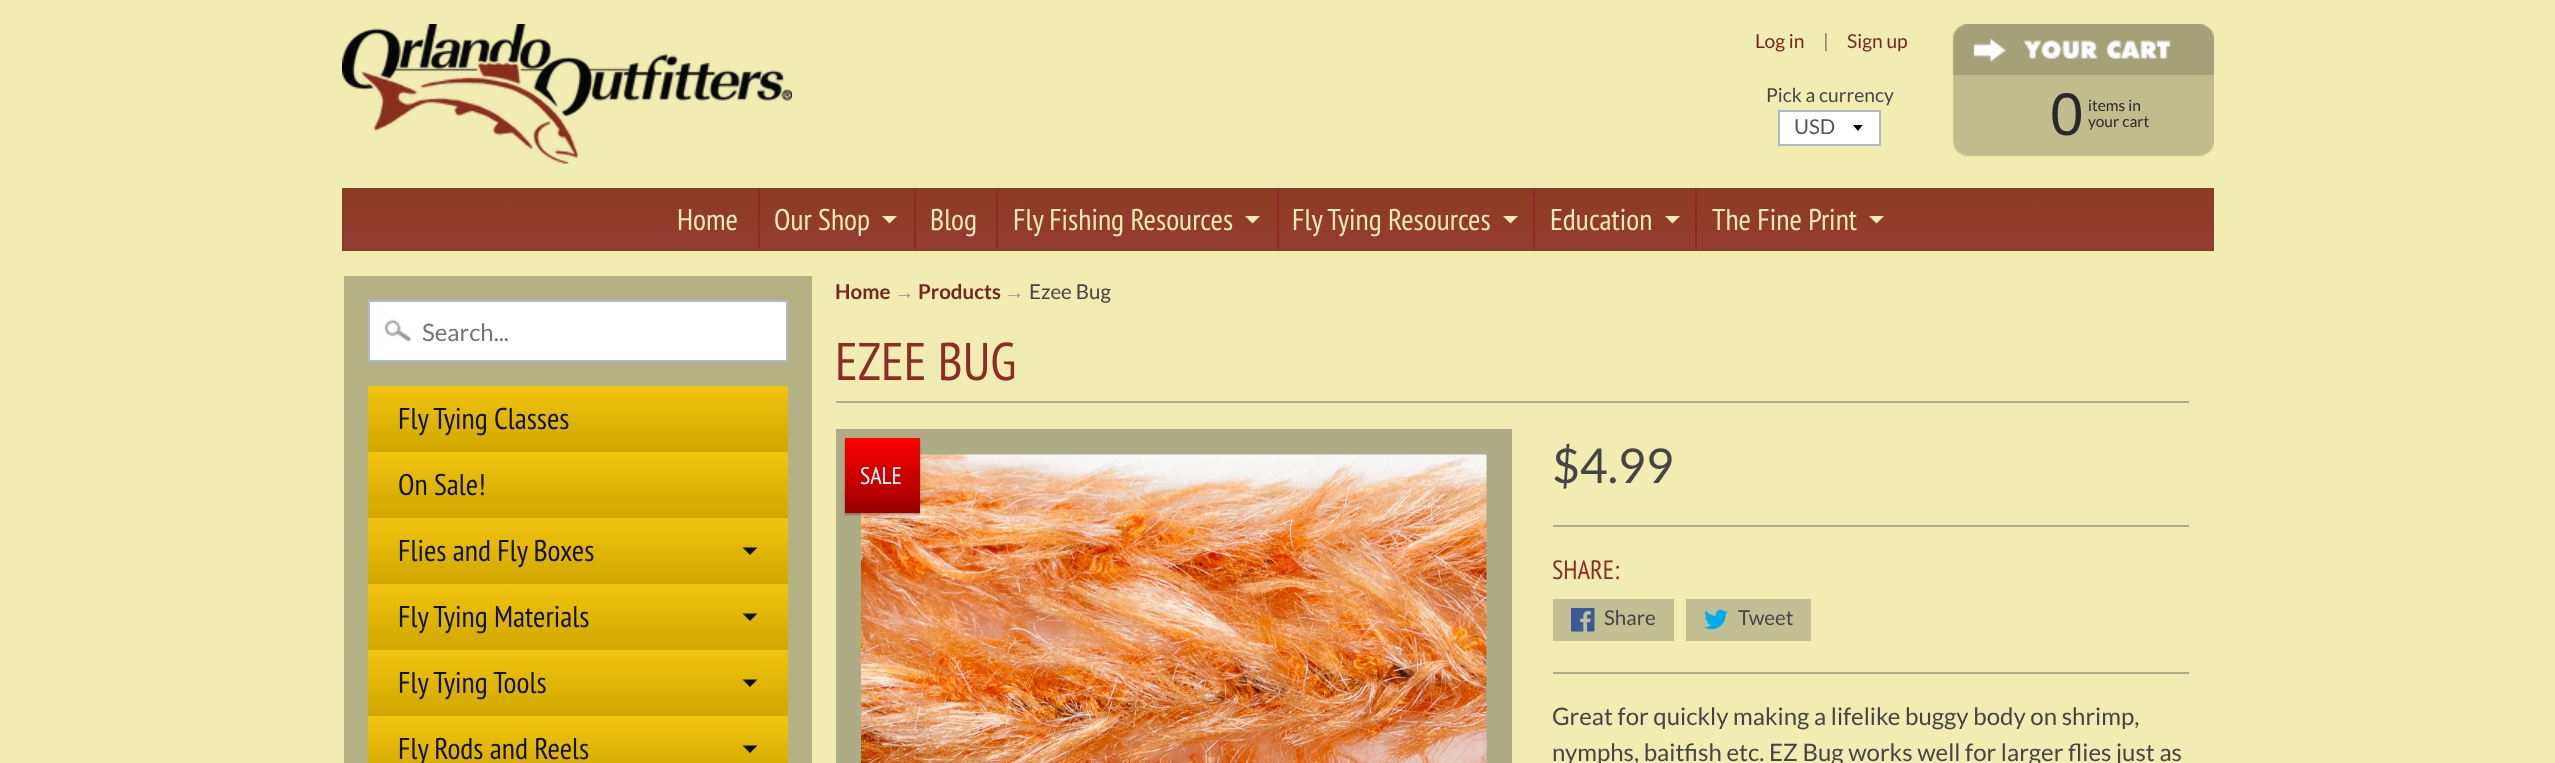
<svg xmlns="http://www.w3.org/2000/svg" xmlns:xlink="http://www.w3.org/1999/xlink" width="2555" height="763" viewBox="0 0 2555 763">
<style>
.cls-1{font:19.25px Lato;fill:#76271f}
.cls-2{font:19.25px Lato;fill:#767466}
.cls-3{font:60px Liberation Sans;fill:#292929}
.cls-4{font:15.5px Lato;fill:#292929}
.cls-5{font:30px PT Sans Narrow;fill:#f0ecb2}
.cls-6{font:19.25px Lato;fill:#464545}
.cls-7{font:20.5px Lato;fill:#555555}
.cls-8{font:24px Lato;fill:#757575}
.cls-9{font:30px PT Sans Narrow;fill:#111111}
.cls-10{font:bold 20.5px Lato;fill:#76271f}
.cls-11{font:20.5px Liberation Sans;fill:#9b997c}
.cls-12{font:20.5px Lato;fill:#464545}
.cls-13{font:53px PT Sans Narrow;fill:#8c2c23}
.cls-14{font:24px PT Sans Narrow;fill:#ffffff}
.cls-15{font:48px Lato;fill:#464545}
.cls-16{font:26.5px PT Sans Narrow;fill:#8c2c23}
.cls-17{font:24px Lato;fill:#464545}
</style>
<defs>
<linearGradient id="g1" gradientUnits="userSpaceOnUse" x1="1278" y1="189" x2="1278" y2="249"><stop offset="0" stop-color="#8c3c23"/><stop offset="1" stop-color="#943b33"/></linearGradient>
<clipPath id="clip1"><rect x="1853" y="125" width="12" height="7"/></clipPath>
<linearGradient id="g2" gradientUnits="userSpaceOnUse" x1="578" y1="386" x2="578" y2="452"><stop offset="0" stop-color="#f1c40f"/><stop offset="1" stop-color="#d1a701"/></linearGradient>
<linearGradient id="g3" gradientUnits="userSpaceOnUse" x1="578" y1="452" x2="578" y2="518"><stop offset="0" stop-color="#f1c40f"/><stop offset="1" stop-color="#d1a701"/></linearGradient>
<linearGradient id="g4" gradientUnits="userSpaceOnUse" x1="578" y1="518" x2="578" y2="584"><stop offset="0" stop-color="#f1c40f"/><stop offset="1" stop-color="#d1a701"/></linearGradient>
<linearGradient id="g5" gradientUnits="userSpaceOnUse" x1="578" y1="584" x2="578" y2="650"><stop offset="0" stop-color="#f1c40f"/><stop offset="1" stop-color="#d1a701"/></linearGradient>
<linearGradient id="g6" gradientUnits="userSpaceOnUse" x1="578" y1="650" x2="578" y2="716"><stop offset="0" stop-color="#f1c40f"/><stop offset="1" stop-color="#d1a701"/></linearGradient>
<linearGradient id="g7" gradientUnits="userSpaceOnUse" x1="578" y1="716" x2="578" y2="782"><stop offset="0" stop-color="#f1c40f"/><stop offset="1" stop-color="#d1a701"/></linearGradient>
<linearGradient id="g8" gradientUnits="userSpaceOnUse" x1="882" y1="438" x2="882" y2="513"><stop offset="0" stop-color="#ff0000"/><stop offset="1" stop-color="#990000"/></linearGradient>
</defs>
<rect width="100%" height="100%" fill="#f0ecb2"/>
<image xlink:href="image0.png" x="342" y="24" width="450" height="140"/>
<image xlink:href="image1.png" x="1952" y="24" width="262" height="133"/>
<rect fill="url(#g1)" x="344" y="190" width="1868" height="59"/>
<rect fill="none" stroke="#8c3c23" stroke-width="2" x="343" y="189" width="1870" height="61"/>
<rect fill="#8c2c23" x="758" y="189" width="2" height="60"/>
<path fill="#f0ecb2" d="M882 216H897L889.5 223.5Z"/>
<rect fill="#8c2c23" x="914" y="189" width="2" height="60"/>
<rect fill="#8c2c23" x="996" y="189" width="2" height="60"/>
<path fill="#f0ecb2" d="M1245 216H1260L1252.5 223.5Z"/>
<rect fill="#8c2c23" x="1277" y="189" width="2" height="60"/>
<path fill="#f0ecb2" d="M1503 216H1518L1510.5 223.5Z"/>
<rect fill="#8c2c23" x="1533" y="189" width="2" height="60"/>
<path fill="#f0ecb2" d="M1665 216H1680L1672.5 223.5Z"/>
<rect fill="#8c2c23" x="1695" y="189" width="2" height="60"/>
<path fill="#f0ecb2" d="M1869 216H1884L1876.5 223.5Z"/>
<rect fill="#ffffff" x="1780" y="112" width="99" height="32"/>
<g clip-path="url(#clip1)">
<path fill="#000000" d="M1852.5 124.5L1858 131L1863 124.5Z"/>
</g>
<rect fill="none" stroke="#b2b9bd" stroke-width="2" x="1779" y="111" width="101" height="34"/>
<rect fill="#b4b185" x="344" y="276" width="468" height="487"/>
<rect fill="#ffffff" x="370" y="302" width="416" height="58"/>
<image xlink:href="image2.png" x="384" y="319" width="27" height="23"/>
<rect fill="none" stroke="#b2b9bd" stroke-width="2" x="369" y="301" width="418" height="60"/>
<rect fill="url(#g2)" x="368" y="386" width="420" height="66"/>
<rect fill="url(#g3)" x="368" y="452" width="420" height="66"/>
<rect fill="url(#g4)" x="368" y="518" width="420" height="66"/>
<path fill="#111111" d="M742.5 547.5H757.5L750 555Z"/>
<rect fill="url(#g5)" x="368" y="584" width="420" height="66"/>
<path fill="#111111" d="M742.5 613.5H757.5L750 621Z"/>
<rect fill="url(#g6)" x="368" y="650" width="420" height="66"/>
<path fill="#111111" d="M742.5 679.5H757.5L750 687Z"/>
<rect fill="url(#g7)" x="368" y="716" width="420" height="47"/>
<path fill="#111111" d="M742.5 745.5H757.5L750 753Z"/>
<rect fill="#aeac87" x="836" y="401" width="1353" height="2"/>
<rect fill="#aeac87" x="836" y="429" width="676" height="334"/>
<image xlink:href="image3.png" x="861" y="454" width="626" height="309"/>
<rect fill="#000000" fill-opacity="0.3" filter="blur(1px)" x="845" y="440" width="75" height="75"/>
<rect fill="url(#g8)" x="845" y="438" width="75" height="75"/>
<rect fill="#aeac87" x="1553" y="525" width="636" height="2"/>
<rect fill="#c2bf94" x="1553" y="599" width="121" height="42"/>
<image xlink:href="image4.png" x="1571" y="608" width="24" height="24"/>
<rect fill="#c2bf94" x="1686" y="599" width="125" height="42"/>
<image xlink:href="image5.png" x="1704" y="609" width="24" height="21"/>
<rect fill="#aeac87" x="1553" y="672" width="636" height="2"/>
<text class="cls-1" x="1755" y="48">Log in</text>
<text class="cls-2" x="1823" y="48">|</text>
<text class="cls-1" x="1847" y="48">Sign up</text>
<text class="cls-3" x="2050" y="135">0</text>
<text class="cls-4"><tspan x="2088" y="111">items in</tspan><tspan x="2088" y="127">your cart</tspan></text>
<text class="cls-5" x="677" y="230">Home</text>
<text class="cls-5" x="774" y="230">Our Shop</text>
<text class="cls-5" x="930" y="230">Blog</text>
<text class="cls-5" x="1013" y="230">Fly Fishing Resources</text>
<text class="cls-5" x="1292" y="230">Fly Tying Resources</text>
<text class="cls-5" x="1550" y="230">Education</text>
<text class="cls-5" x="1712" y="230">The Fine Print</text>
<text class="cls-6" x="1766" y="102">Pick a currency</text>
<text class="cls-7" x="1794" y="134">USD</text>
<text class="cls-8" x="422" y="341">Search...</text>
<text class="cls-9" x="398" y="429">Fly Tying Classes</text>
<text class="cls-9" x="398" y="495">On Sale!</text>
<text class="cls-9" x="398" y="561">Flies and Fly Boxes</text>
<text class="cls-9" x="398" y="627">Fly Tying Materials</text>
<text class="cls-9" x="398" y="693">Fly Tying Tools</text>
<text class="cls-9" x="398" y="759">Fly Rods and Reels</text>
<text class="cls-10" x="835" y="299">Home</text>
<text class="cls-11" x="894" y="299">→</text>
<text class="cls-10" x="918" y="299">Products</text>
<text class="cls-11" x="1004" y="299">→</text>
<text class="cls-12" x="1029" y="299">Ezee Bug</text>
<text class="cls-13" x="835" y="380">EZEE BUG</text>
<text class="cls-14" x="860" y="484">SALE</text>
<text class="cls-15" x="1552" y="483">$4.99</text>
<text class="cls-16" x="1552" y="579">SHARE:</text>
<text class="cls-12" x="1604" y="625">Share</text>
<text class="cls-12" x="1738" y="625">Tweet</text>
<text class="cls-17"><tspan x="1552" y="725">Great for quickly making a lifelike buggy body on shrimp,</tspan><tspan x="1552" y="761">nymphs, baitfish etc. EZ Bug works well for larger flies just as</tspan></text>
</svg>
